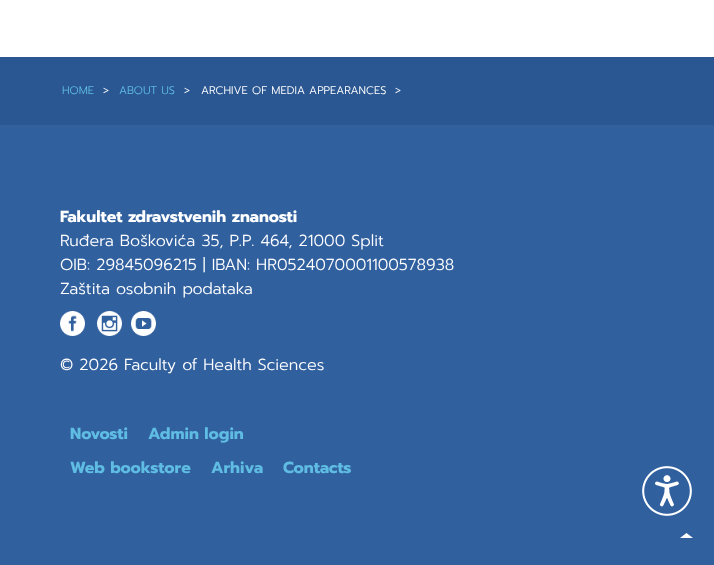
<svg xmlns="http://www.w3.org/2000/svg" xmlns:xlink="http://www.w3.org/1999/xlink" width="714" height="565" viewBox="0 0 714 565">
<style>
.cls-1{font:300 11px Prompt;fill:#5fbce2}
.cls-2{font:300 11px Prompt;fill:#ffffff}
.cls-3{font:bold 16px Prompt;fill:#ffffff}
.cls-4{font:300 16px Prompt;fill:#ffffff}
.cls-5{font:bold 16px Prompt;fill:#5fbce2}
</style>
<rect width="100%" height="100%" fill="#ffffff"/>
<rect fill="#2a5691" x="0" y="57" width="714" height="68"/>
<rect fill="#31609f" x="0" y="125" width="714" height="440"/>
<image xlink:href="image0.png" x="60" y="311" width="25" height="25"/>
<image xlink:href="image1.png" x="97" y="311" width="25" height="25"/>
<image xlink:href="image2.png" x="131" y="311" width="25" height="25"/>
<image xlink:href="image3.png" x="680" y="533" width="13" height="5"/>
<image xlink:href="image4.png" x="642" y="466" width="50" height="50"/>
<text class="cls-1" x="62" y="94">HOME</text>
<text class="cls-2" x="103" y="94">&gt;</text>
<text class="cls-1" x="119" y="94">ABOUT US</text>
<text class="cls-2" x="184" y="94">&gt;</text>
<text class="cls-2" x="201" y="94">ARCHIVE OF MEDIA APPEARANCES</text>
<text class="cls-2" x="395" y="94">&gt;</text>
<text class="cls-3" x="60" y="222">Fakultet zdravstvenih znanosti</text>
<text class="cls-4"><tspan x="60" y="246">Ruđera Boškovića 35, P.P. 464, 21000 Split</tspan><tspan x="60" y="270">OIB: 29845096215 | IBAN: HR0524070001100578938</tspan><tspan x="60" y="294">Zaštita osobnih podataka</tspan></text>
<text class="cls-4" x="60" y="370">© 2026 Faculty of Health Sciences</text>
<text class="cls-5" x="70" y="439">Novosti</text>
<text class="cls-5" x="148" y="439">Admin login</text>
<text class="cls-5" x="70" y="473">Web bookstore</text>
<text class="cls-5" x="211" y="473">Arhiva</text>
<text class="cls-5" x="283" y="473">Contacts</text>
</svg>
